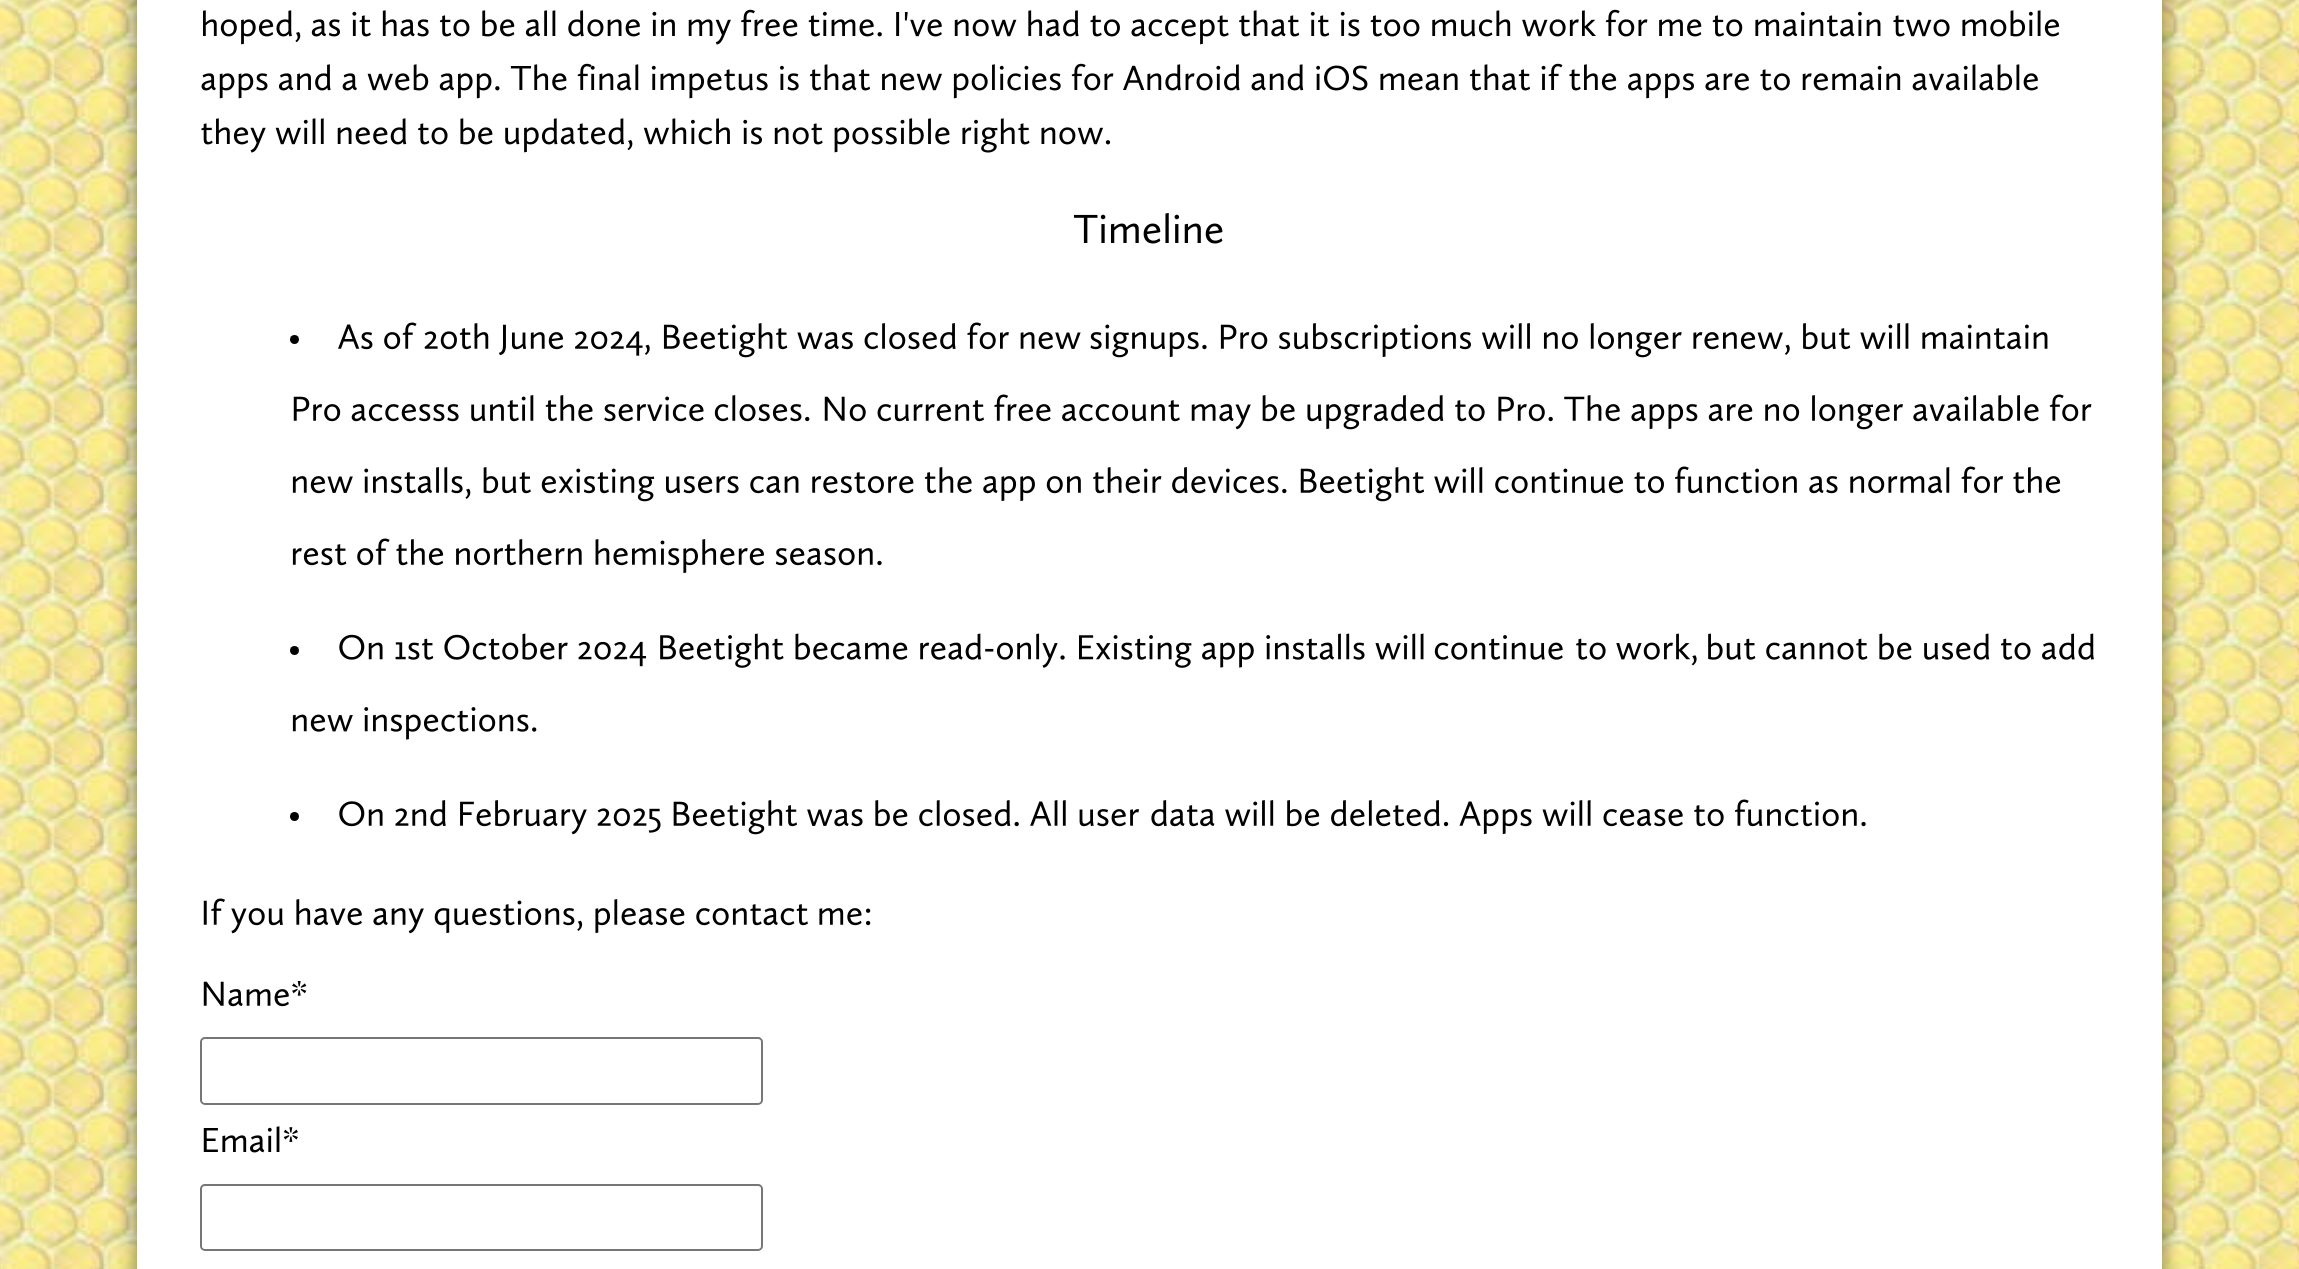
<svg xmlns="http://www.w3.org/2000/svg" xmlns:xlink="http://www.w3.org/1999/xlink" width="2299" height="1269" viewBox="0 0 2299 1269">
<rect width="100%" height="100%" fill="#ffffff"/>
<image xlink:href="image0.png" x="0" y="0" width="2299" height="1269"/>
<rect fill="#000000" fill-opacity="0.5" filter="blur(11px)" x="137" y="-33" width="2025" height="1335"/>
<rect fill="#ffffff" x="137" y="0" width="2025" height="1269"/>
<image xlink:href="image1.png" x="203" y="10" width="98" height="35"/>
<image xlink:href="image2.png" x="311" y="9" width="1432" height="36"/>
<image xlink:href="image3.png" x="1755" y="11" width="126" height="26"/>
<image xlink:href="image4.png" x="1893" y="10" width="167" height="27"/>
<image xlink:href="image5.png" x="201" y="63" width="1362" height="36"/>
<image xlink:href="image6.png" x="1569" y="64" width="48" height="27"/>
<image xlink:href="image7.png" x="1628" y="64" width="410" height="35"/>
<image xlink:href="image8.png" x="201" y="118" width="910" height="35"/>
<image xlink:href="image9.png" x="1073" y="213" width="150" height="31"/>
<circle fill="#000000" cx="294.5" cy="339.5" r="4.5"/>
<image xlink:href="image10.png" x="338" y="322" width="79" height="28"/>
<image xlink:href="image11.png" x="424" y="323" width="219" height="33"/>
<image xlink:href="image12.png" x="644" y="322" width="437" height="36"/>
<image xlink:href="image13.png" x="1090" y="323" width="958" height="35"/>
<image xlink:href="image14.png" x="293" y="395" width="411" height="27"/>
<image xlink:href="image15.png" x="714" y="395" width="96" height="27"/>
<image xlink:href="image16.png" x="824" y="394" width="1268" height="36"/>
<image xlink:href="image17.png" x="292" y="467" width="1372" height="35"/>
<image xlink:href="image18.png" x="1675" y="466" width="386" height="28"/>
<image xlink:href="image19.png" x="292" y="538" width="590" height="36"/>
<circle fill="#000000" cx="294.5" cy="650.5" r="4.5"/>
<image xlink:href="image20.png" x="339" y="634" width="44" height="26"/>
<image xlink:href="image21.png" x="395" y="633" width="252" height="34"/>
<image xlink:href="image22.png" x="660" y="633" width="764" height="35"/>
<image xlink:href="image23.png" x="1434" y="635" width="129" height="25"/>
<image xlink:href="image24.png" x="1576" y="638" width="30" height="22"/>
<image xlink:href="image25.png" x="1616" y="633" width="81" height="33"/>
<image xlink:href="image26.png" x="1708" y="633" width="386" height="27"/>
<image xlink:href="image27.png" x="292" y="707" width="245" height="33"/>
<circle fill="#000000" cx="294.5" cy="816.5" r="4.5"/>
<image xlink:href="image28.png" x="339" y="801" width="44" height="26"/>
<image xlink:href="image29.png" x="395" y="800" width="266" height="35"/>
<image xlink:href="image30.png" x="673" y="800" width="466" height="35"/>
<image xlink:href="image31.png" x="1151" y="799" width="715" height="35"/>
<image xlink:href="image32.png" x="203" y="898" width="605" height="36"/>
<image xlink:href="image33.png" x="819" y="908" width="52" height="18"/>
<image xlink:href="image34.png" x="203" y="981" width="104" height="26"/>
<rect fill="none" stroke="#767676" stroke-width="2" x="201" y="1038" width="561" height="66" rx="4"/>
<image xlink:href="image35.png" x="203" y="1126" width="95" height="27"/>
<rect fill="none" stroke="#767676" stroke-width="2" x="201" y="1185" width="561" height="65" rx="4"/>
</svg>
